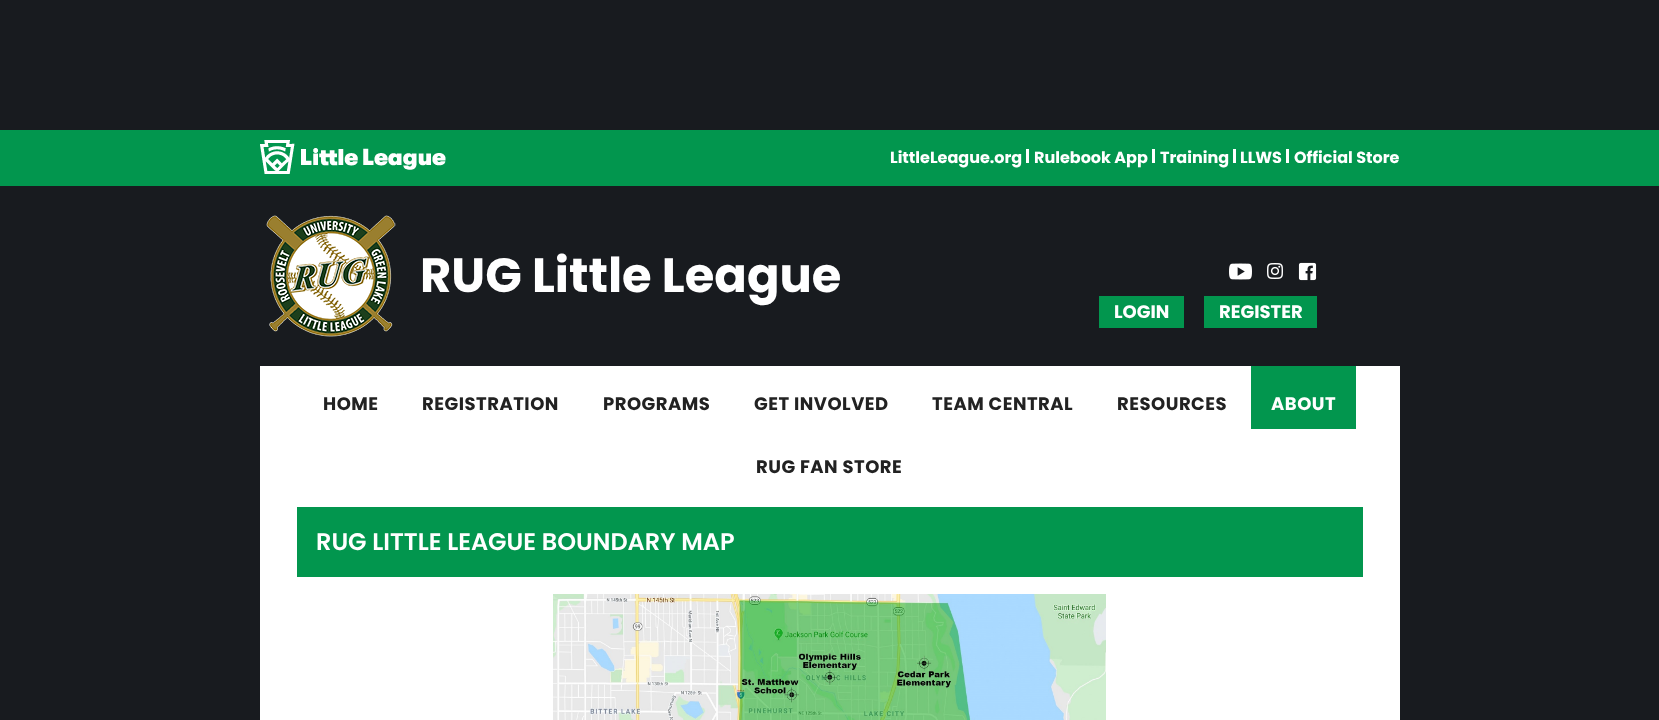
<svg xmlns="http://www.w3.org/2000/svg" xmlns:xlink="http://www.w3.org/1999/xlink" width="1659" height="720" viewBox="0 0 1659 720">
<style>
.cls-1{font:bold 16px Poppins;fill:#ffffff}
.cls-2{font:bold 48px Poppins;fill:#ffffff}
.cls-3{font:bold 18px Poppins;fill:#ffffff}
.cls-4{font:bold 18px Poppins;letter-spacing:0.5px;fill:#222222}
.cls-5{font:bold 18px Poppins;letter-spacing:0.5px;fill:#ffffff}
.cls-6{font:600 24px Poppins;fill:#ffffff}
</style>
<rect width="100%" height="100%" fill="#181b1f"/>
<rect fill="#02964e" x="0" y="130" width="1659" height="56"/>
<image xlink:href="image0.png" x="260" y="140" width="186" height="34"/>
<rect fill="#ffffff" x="1026" y="149" width="3" height="14"/>
<rect fill="#ffffff" x="1152" y="149" width="3" height="14"/>
<rect fill="#ffffff" x="1233" y="149" width="3" height="14"/>
<rect fill="#ffffff" x="1286" y="149" width="3" height="14"/>
<image xlink:href="image1.png" x="266" y="215" width="130" height="122"/>
<image xlink:href="image2.png" x="1229" y="263" width="23" height="17"/>
<image xlink:href="image3.png" x="1267" y="263" width="16" height="16"/>
<image xlink:href="image4.png" x="1298" y="262" width="19" height="19"/>
<rect fill="#02964e" x="1099" y="296" width="85" height="32"/>
<rect fill="#02964e" x="1204" y="296" width="113" height="32"/>
<rect fill="#ffffff" x="260" y="366" width="1140" height="354"/>
<rect fill="#02964e" x="1251" y="366" width="105" height="63"/>
<rect fill="#02964e" x="297" y="507" width="1066" height="70"/>
<image xlink:href="image5.png" x="553" y="594" width="553" height="126"/>
<text class="cls-1" x="890" y="163">LittleLeague.org</text>
<text class="cls-1" x="1034" y="163">Rulebook App</text>
<text class="cls-1" x="1160" y="163">Training</text>
<text class="cls-1" x="1240" y="163">LLWS</text>
<text class="cls-1" x="1294" y="163">Official Store</text>
<text class="cls-2" x="420" y="292">RUG Little League</text>
<text class="cls-3" x="1114" y="318">LOGIN</text>
<text class="cls-3" x="1219" y="318">REGISTER</text>
<text class="cls-4" x="323" y="410">HOME</text>
<text class="cls-4" x="422" y="410">REGISTRATION</text>
<text class="cls-4" x="603" y="410">PROGRAMS</text>
<text class="cls-4" x="754" y="410">GET INVOLVED</text>
<text class="cls-4" x="932" y="410">TEAM CENTRAL</text>
<text class="cls-4" x="1117" y="410">RESOURCES</text>
<text class="cls-5" x="1271" y="410">ABOUT</text>
<text class="cls-4" x="756" y="473">RUG FAN STORE</text>
<text class="cls-6" x="316" y="550">RUG LITTLE LEAGUE BOUNDARY MAP</text>
</svg>
